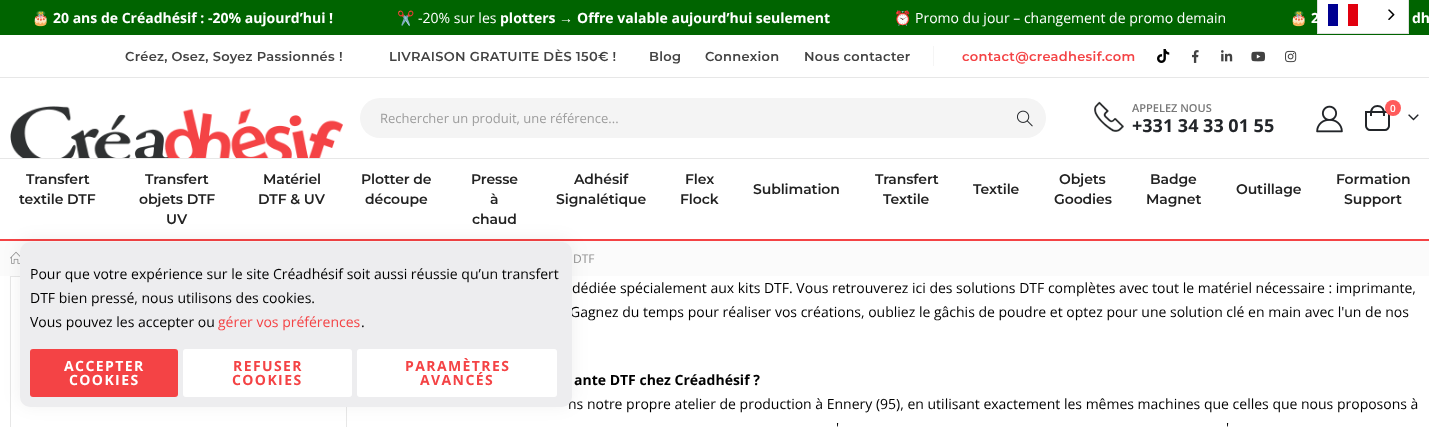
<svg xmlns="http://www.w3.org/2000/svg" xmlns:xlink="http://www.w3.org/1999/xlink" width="1429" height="427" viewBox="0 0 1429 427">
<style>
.cls-1{font:14px Noto Color Emoji;fill:#ffffff}
.cls-2{font:bold 14px Open Sans;fill:#ffffff}
.cls-3{font:14px Open Sans;fill:#ffffff}
.cls-4{font:bold 14px Liberation Serif;fill:#ffffff}
.cls-5{font:600 13px Montserrat;letter-spacing:0.3px;fill:#424242}
.cls-6{font:600 13px Montserrat;letter-spacing:0.3px;fill:#f44345}
.cls-7{font:13px Open Sans;fill:#9d9d9d}
.cls-8{font:600 11px Open Sans;fill:#777777}
.cls-9{font:bold 18px Open Sans;fill:#222529}
.cls-10{font:600 10px Open Sans;fill:#ffffff}
.cls-11{font:600 14px Montserrat;letter-spacing:-0.1px;fill:#222222}
.cls-12{font:12px Open Sans;fill:#8e8e8e}
.cls-13{font:14px Open Sans;fill:#000000}
.cls-14{font:bold 14px Open Sans;fill:#000000}
.cls-15{font:14px Open Sans;fill:#f44345}
.cls-16{font:bold 14px Open Sans;letter-spacing:1.4px;fill:#ffffff}
.cls-17{font:bold 14px Open Sans;letter-spacing:1.4px;fill:#f44345}
</style>
<rect width="100%" height="100%" fill="#ffffff"/>
<rect fill="#006400" x="0" y="0" width="1429" height="35"/>
<rect fill="#ffffff" stroke="#e0e0e0" x="1317.5" y="-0.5" width="91" height="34"/>
<rect fill="#000091" x="1328" y="4" width="10" height="22"/>
<rect fill="#e1000f" x="1348" y="4" width="10" height="22"/>
<image xlink:href="image0.png" x="1388" y="9" width="7" height="11"/>
<rect fill="#f44345" x="0" y="239" width="1429" height="2"/>
<rect fill="#f5f5f5" x="933" y="46" width="1" height="20"/>
<image xlink:href="image1.png" x="1157" y="49" width="13" height="14"/>
<image xlink:href="image2.png" x="1192" y="50" width="7" height="13"/>
<image xlink:href="image3.png" x="1221" y="50" width="12" height="12"/>
<image xlink:href="image4.png" x="1251" y="51" width="15" height="11"/>
<image xlink:href="image5.png" x="1285" y="50" width="12" height="13"/>
<rect fill="#e7e7e7" x="0" y="158" width="1429" height="1"/>
<rect fill="#e7e7e7" x="0" y="77" width="1429" height="1"/>
<image xlink:href="image6.png" x="10" y="106" width="333" height="52"/>
<rect fill="#f4f4f4" x="360" y="98" width="686" height="40" rx="20"/>
<image xlink:href="image7.png" x="1017" y="110" width="16" height="17"/>
<image xlink:href="image8.png" x="1094" y="101" width="30" height="31"/>
<image xlink:href="image9.png" x="1316" y="105" width="27" height="28"/>
<path fill="none" stroke="#222529" stroke-width="2" d="M1366 112H1389V126C1389 128 1387 130 1385 130H1370C1368 130 1366 128 1366 126Z"/>
<path fill="#222529" fill-rule="evenodd" d="M1377.5 105C1381.5 105 1385 108.5 1385 112.5V116H1370V112.5C1370 108.5 1373.5 105 1377.5 105ZM1377.5 107C1383 107 1383 112 1383 116H1372C1372 112 1372 107 1377.5 107Z"/>
<circle fill="#ff5b5b" cx="1393" cy="108" r="8"/>
<image xlink:href="image10.png" x="1408" y="114" width="11" height="7"/>
<rect fill="#fbfbfb" x="0" y="241" width="1429" height="35"/>
<image xlink:href="image11.png" x="10" y="251" width="10" height="13"/>
<rect fill="none" stroke="#e7e7e7" x="10.5" y="276.5" width="336" height="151"/>
<rect fill="#000000" fill-opacity="0.06" filter="blur(9px)" x="20" y="240" width="552" height="165" rx="10"/>
<text class="cls-1" x="32" y="23">🎂</text>
<text class="cls-2" x="53" y="23">20 ans de Créadhésif : -20% aujourd’hui !</text>
<text class="cls-1" x="397" y="23">✂️</text>
<text class="cls-3" x="418" y="23">-20% sur les</text>
<text class="cls-2" x="500" y="23">plotters</text>
<text class="cls-4" x="559" y="23">→</text>
<text class="cls-2" x="577" y="23">Offre valable aujourd’hui seulement</text>
<text class="cls-1" x="894" y="23">⏰</text>
<text class="cls-3" x="915" y="23">Promo du jour – changement de promo demain</text>
<text class="cls-1" x="1290" y="23">🎂</text>
<text class="cls-2" x="1311" y="23">2</text>
<text class="cls-2" x="1412" y="23">dh</text>
<text class="cls-5" x="125" y="61">Créez, Osez, Soyez Passionnés !</text>
<text class="cls-5" x="389" y="61">LIVRAISON GRATUITE DÈS 150€ !</text>
<text class="cls-5" x="649" y="61">Blog</text>
<text class="cls-5" x="705" y="61">Connexion</text>
<text class="cls-5" x="804" y="61">Nous contacter</text>
<text class="cls-6" x="962" y="61">contact@creadhesif.com</text>
<text class="cls-7" x="380" y="123">Rechercher un produit, une référence...</text>
<text class="cls-8" x="1132" y="112">APPELEZ NOUS</text>
<text class="cls-9" x="1132" y="132">+331 34 33 01 55</text>
<text class="cls-10" x="1390" y="112">0</text>
<text class="cls-11" x="26" y="184">Transfert</text>
<text class="cls-11" x="19" y="204">textile DTF</text>
<text class="cls-11" x="145" y="184">Transfert</text>
<text class="cls-11" x="139" y="204">objets DTF</text>
<text class="cls-11" x="166" y="224">UV</text>
<text class="cls-11" x="263" y="184">Matériel</text>
<text class="cls-11" x="258" y="204">DTF &amp; UV</text>
<text class="cls-11" x="361" y="184">Plotter de</text>
<text class="cls-11" x="365" y="204">découpe</text>
<text class="cls-11" x="471" y="184">Presse</text>
<text class="cls-11" x="490" y="204">à</text>
<text class="cls-11" x="472" y="224">chaud</text>
<text class="cls-11" x="574" y="184">Adhésif</text>
<text class="cls-11" x="556" y="204">Signalétique</text>
<text class="cls-11" x="685" y="184">Flex</text>
<text class="cls-11" x="680" y="204">Flock</text>
<text class="cls-11" x="753" y="194">Sublimation</text>
<text class="cls-11" x="875" y="184">Transfert</text>
<text class="cls-11" x="883" y="204">Textile</text>
<text class="cls-11" x="973" y="194">Textile</text>
<text class="cls-11" x="1059" y="184">Objets</text>
<text class="cls-11" x="1054" y="204">Goodies</text>
<text class="cls-11" x="1150" y="184">Badge</text>
<text class="cls-11" x="1146" y="204">Magnet</text>
<text class="cls-11" x="1236" y="194">Outillage</text>
<text class="cls-11" x="1336" y="184">Formation</text>
<text class="cls-11" x="1344" y="204">Support</text>
<text class="cls-12" x="573" y="263">DTF</text>
<text class="cls-13" x="572" y="293">dédiée spécialement aux kits DTF. Vous retrouverez ici des solutions DTF complètes avec tout le matériel nécessaire : imprimante,</text>
<text class="cls-13" x="570" y="317">Gagnez du temps pour réaliser vos créations, oubliez le gâchis de poudre et optez pour une solution clé en main avec l'un de nos</text>
<text class="cls-14" x="574" y="385">ante DTF chez Créadhésif ?</text>
<text class="cls-13" x="568" y="409">ns notre propre atelier de production à Ennery (95), en utilisant exactement les mêmes machines que celles que nous proposons à</text>
<text class="cls-13" x="836" y="433">'</text>
<text class="cls-13" x="1226" y="433">'</text>
<rect fill="#ededef" x="20" y="242" width="552" height="165" rx="10"/>
<text class="cls-13"><tspan x="30" y="279">Pour que votre expérience sur le site Créadhésif soit aussi réussie qu’un transfert</tspan><tspan x="30" y="303">DTF bien pressé, nous utilisons des cookies.</tspan><tspan x="30" y="327">Vous pouvez les accepter ou</tspan></text>
<text class="cls-15" x="218" y="327">gérer vos préférences</text>
<text class="cls-13" x="361" y="327">.</text>
<rect fill="#f44345" x="30" y="349" width="148" height="48" rx="3"/>
<text class="cls-16" x="64" y="371">ACCEPTER</text>
<text class="cls-16" x="69" y="385">COOKIES</text>
<rect fill="#ffffff" x="183" y="349" width="169" height="48" rx="3"/>
<text class="cls-17" x="233" y="371">REFUSER</text>
<text class="cls-17" x="232" y="385">COOKIES</text>
<rect fill="#ffffff" x="357" y="349" width="200" height="48" rx="3"/>
<text class="cls-17" x="405" y="371">PARAMÈTRES</text>
<text class="cls-17" x="420" y="385">AVANCÉS</text>
</svg>
